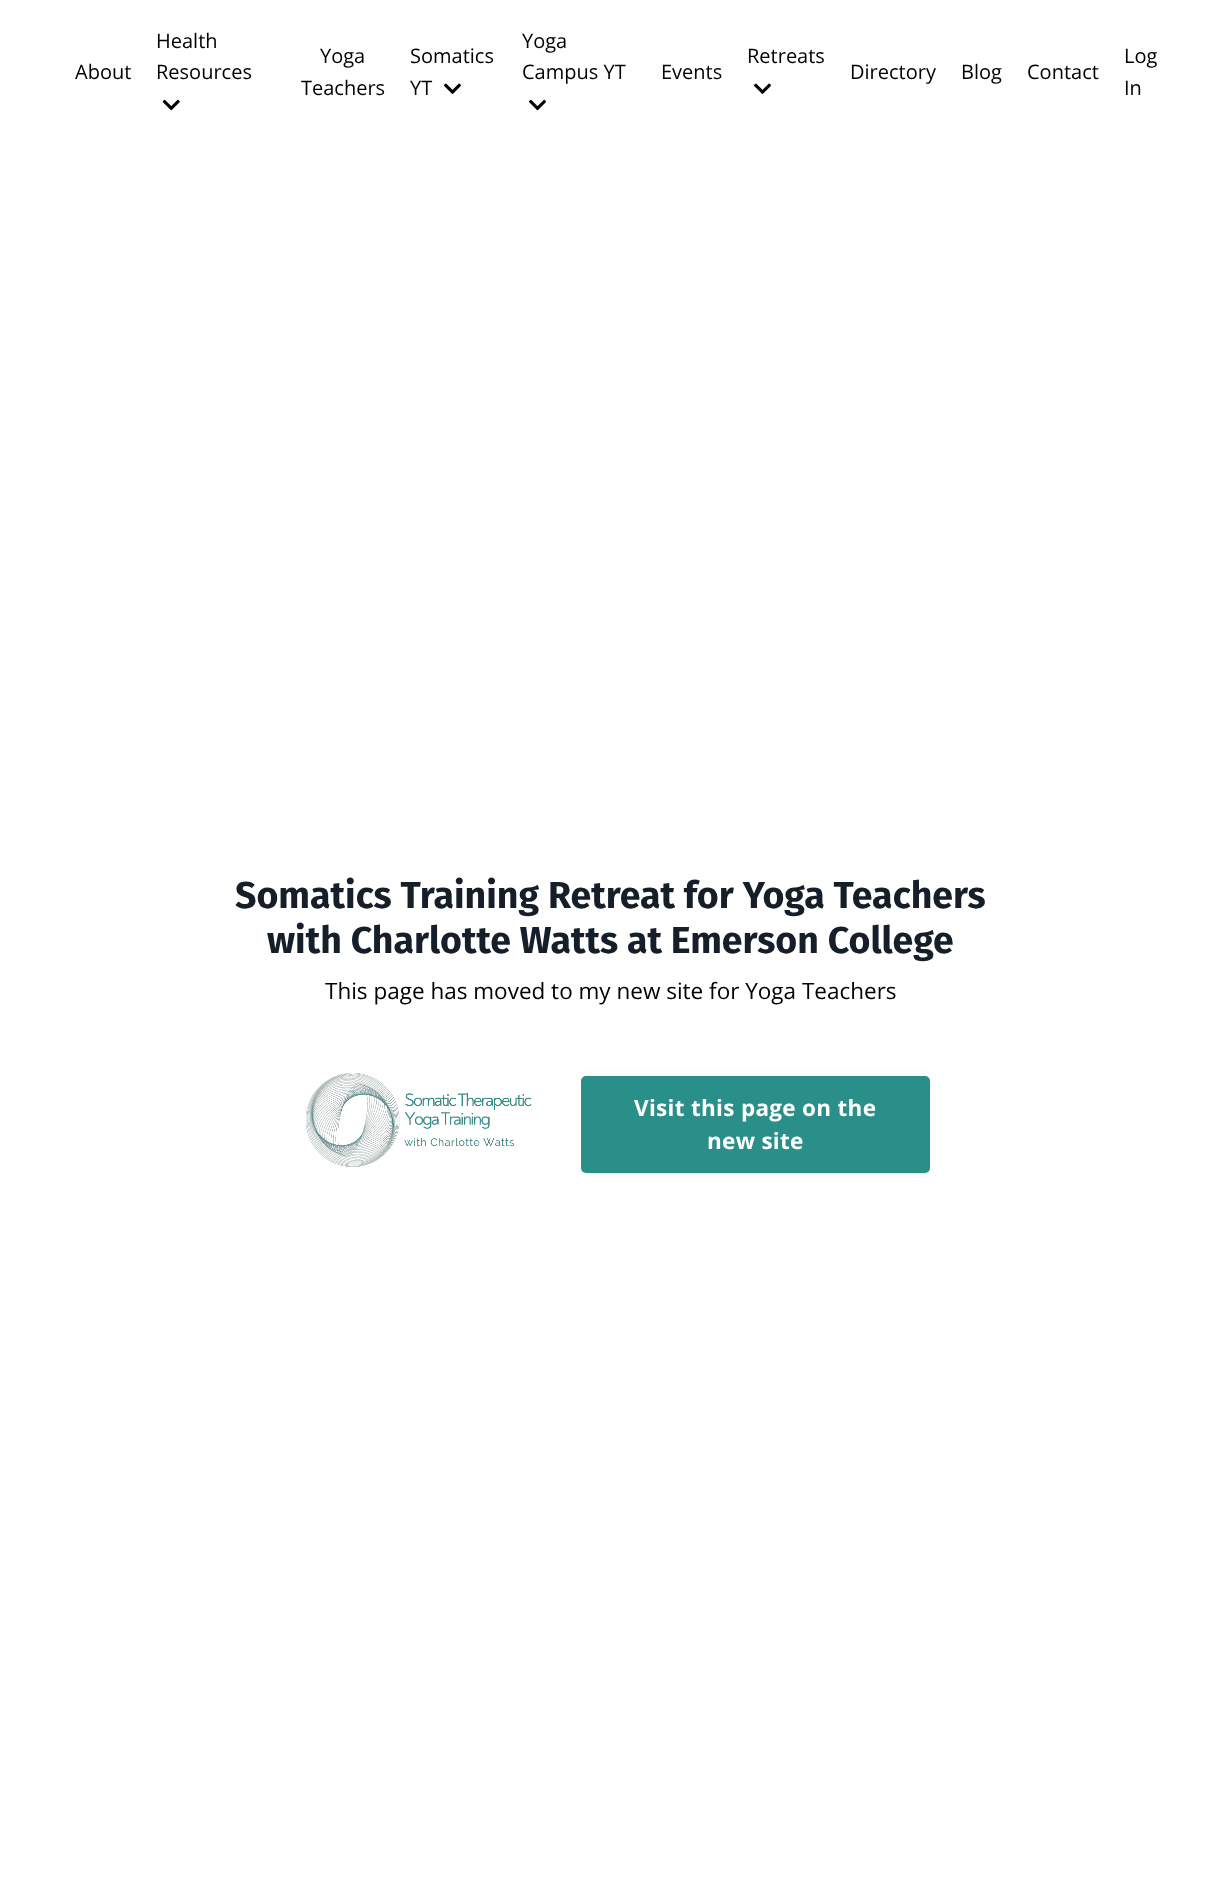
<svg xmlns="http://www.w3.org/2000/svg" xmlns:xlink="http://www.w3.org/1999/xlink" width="1221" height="1900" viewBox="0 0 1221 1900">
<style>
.cls-1{font:20px Open Sans;fill:#000000}
.cls-2{font:bold 37.5px Fira Sans;fill:#161e2a}
.cls-3{font:22.5px Open Sans;fill:#000000}
.cls-4{font:bold 22.5px Open Sans;letter-spacing:0.3px;fill:#ffffff}
</style>
<defs>
<clipPath id="clip1"><rect x="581" y="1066" width="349" height="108" rx="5"/></clipPath>
</defs>
<rect width="100%" height="100%" fill="#ffffff"/>
<image xlink:href="image0.png" x="162" y="99" width="18" height="12"/>
<image xlink:href="image1.png" x="444" y="83" width="17" height="11"/>
<image xlink:href="image2.png" x="529" y="99" width="17" height="12"/>
<image xlink:href="image1.png" x="754" y="83" width="17" height="11"/>
<image xlink:href="image3.png" x="306" y="1073" width="226" height="94"/>
<g clip-path="url(#clip1)">
<rect fill="#000000" fill-opacity="0.1" filter="blur(6px)" x="581" y="1079" width="349" height="96" rx="5"/>
</g>
<rect fill="#2b8f89" stroke="#2b8f89" stroke-width="3" x="582.5" y="1077.5" width="346" height="94" rx="3.5"/>
<text class="cls-1" x="75" y="79">About</text>
<text class="cls-1"><tspan x="156" y="48">Health</tspan><tspan x="156" y="79">Resources</tspan></text>
<text class="cls-1" x="320" y="63">Yoga</text>
<text class="cls-1" x="301" y="95">Teachers</text>
<text class="cls-1"><tspan x="410" y="63">Somatics</tspan><tspan x="410" y="95">YT</tspan></text>
<text class="cls-1"><tspan x="522" y="48">Yoga</tspan><tspan x="522" y="79">Campus YT</tspan></text>
<text class="cls-1" x="661" y="79">Events</text>
<text class="cls-1" x="747" y="63">Retreats</text>
<text class="cls-1" x="850" y="79">Directory</text>
<text class="cls-1" x="961" y="79">Blog</text>
<text class="cls-1" x="1027" y="79">Contact</text>
<text class="cls-1"><tspan x="1124" y="63">Log</tspan><tspan x="1124" y="95">In</tspan></text>
<text class="cls-2" x="235" y="908">Somatics Training Retreat for Yoga Teachers</text>
<text class="cls-2" x="267" y="953">with Charlotte Watts at Emerson College</text>
<text class="cls-3" x="325" y="999">This page has moved to my new site for Yoga Teachers</text>
<text class="cls-4" x="634" y="1116">Visit this page on the</text>
<text class="cls-4" x="707" y="1149">new site</text>
</svg>
